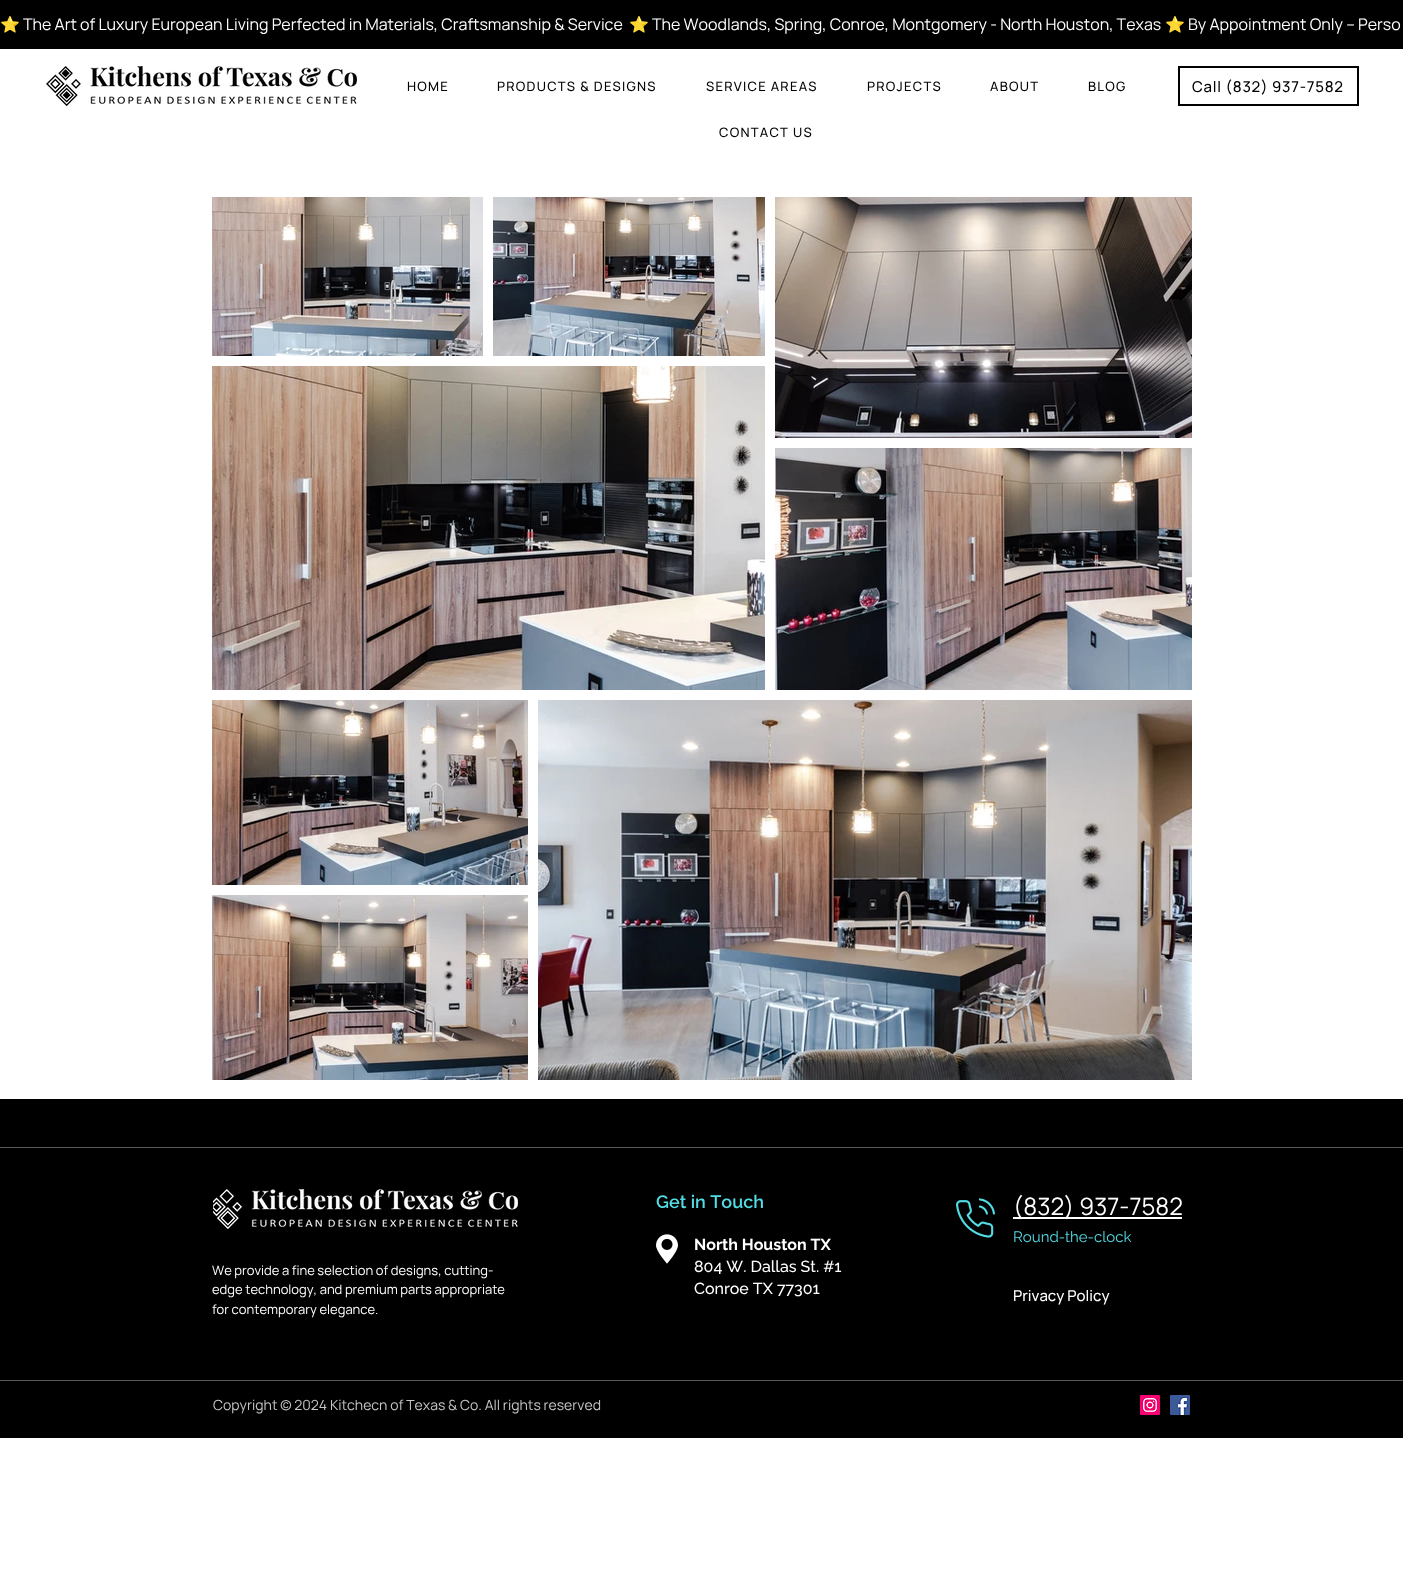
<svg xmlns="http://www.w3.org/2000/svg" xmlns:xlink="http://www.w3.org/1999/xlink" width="1403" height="1590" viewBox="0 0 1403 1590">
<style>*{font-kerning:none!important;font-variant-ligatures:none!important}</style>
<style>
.cls-1{font:16px Noto Color Emoji;fill:#ffffff}
.cls-2{font:16px Manrope;fill:#ffffff}
.cls-3{font:500 13px Manrope;letter-spacing:1.25px;fill:#000000}
.cls-4{font:500 15px Manrope;letter-spacing:0.75px;fill:#000000}
.cls-5{font:600 18px Raleway;fill:#52dce4}
.cls-6{font:bold 16px Raleway;fill:#ffffff}
.cls-7{font:500 16px Raleway;fill:#ffffff}
.cls-8{font:24px Manrope;fill:#ffffff}
.cls-9{font:15px Raleway;fill:#52dce4}
.cls-10{font:13px Manrope;fill:#ffffff}
.cls-11{font:500 15px Manrope;fill:#ffffff}
.cls-12{font:14px Manrope;fill:#c7c7c7}
</style>
<rect width="100%" height="100%" fill="#ffffff"/>
<rect fill="#000000" x="0" y="0" width="1403" height="49"/>
<image xlink:href="image0.png" x="46" y="66" width="311" height="40"/>
<rect fill="none" stroke="#000000" stroke-width="2" x="1179" y="67" width="179" height="38"/>
<image xlink:href="image1.png" x="212" y="197" width="271" height="159"/>
<image xlink:href="image2.png" x="493" y="197" width="272" height="159"/>
<image xlink:href="image3.png" x="775" y="197" width="417" height="241"/>
<image xlink:href="image4.png" x="212" y="366" width="553" height="324"/>
<image xlink:href="image5.png" x="775" y="448" width="417" height="242"/>
<image xlink:href="image6.png" x="212" y="700" width="316" height="185"/>
<image xlink:href="image7.png" x="538" y="700" width="654" height="380"/>
<image xlink:href="image8.png" x="212" y="895" width="316" height="185"/>
<rect fill="#000000" x="0" y="1099" width="1403" height="339"/>
<rect fill="#595959" x="0" y="1147" width="1403" height="1"/>
<image xlink:href="image9.png" x="213" y="1189" width="305" height="40"/>
<image xlink:href="image10.png" x="656" y="1234" width="22" height="30"/>
<image xlink:href="image11.png" x="956" y="1198" width="39" height="40"/>
<rect fill="#ffffff" x="1013" y="1217" width="169" height="2"/>
<rect fill="#595959" x="0" y="1380" width="1403" height="1"/>
<image xlink:href="image12.png" x="1140" y="1395" width="20" height="20"/>
<image xlink:href="image13.png" x="1170" y="1395" width="20" height="20"/>
<text class="cls-1" x="0" y="30">⭐</text>
<text class="cls-2" x="23" y="30">The Art of Luxury European Living Perfected in Materials, Craftsmanship &amp; Service</text>
<text class="cls-1" x="629" y="30">⭐</text>
<text class="cls-2" x="652" y="30">The Woodlands, Spring, Conroe, Montgomery - North Houston, Texas</text>
<text class="cls-1" x="1165" y="30">⭐</text>
<text class="cls-2" x="1188" y="30">By Appointment Only – Perso</text>
<text class="cls-3" x="407" y="91">HOME</text>
<text class="cls-3" x="497" y="91">PRODUCTS &amp; DESIGNS</text>
<text class="cls-3" x="706" y="91">SERVICE AREAS</text>
<text class="cls-3" x="867" y="91">PROJECTS</text>
<text class="cls-3" x="990" y="91">ABOUT</text>
<text class="cls-3" x="1088" y="91">BLOG</text>
<text class="cls-3" x="719" y="137">CONTACT US</text>
<text class="cls-4" x="1192" y="92">Call (832) 937-7582</text>
<text class="cls-5" x="656" y="1208">Get in Touch</text>
<text class="cls-6" x="694" y="1250">North Houston TX</text>
<text class="cls-7"><tspan x="694" y="1272">804 W. Dallas St. #1</tspan><tspan x="694" y="1294">Conroe TX 77301</tspan></text>
<text class="cls-8" x="1013" y="1215">(832) 937-7582</text>
<text class="cls-9" x="1013" y="1242">Round-the-clock</text>
<text class="cls-10"><tspan x="212" y="1275">We provide a fine selection of designs, cutting-</tspan><tspan x="212" y="1294">edge technology, and premium parts appropriate</tspan><tspan x="212" y="1314">for contemporary elegance.</tspan></text>
<text class="cls-11" x="1013" y="1301">Privacy Policy</text>
<text class="cls-12" x="213" y="1410">Copyright © 2024 Kitchecn of Texas &amp; Co. All rights reserved</text>
</svg>
